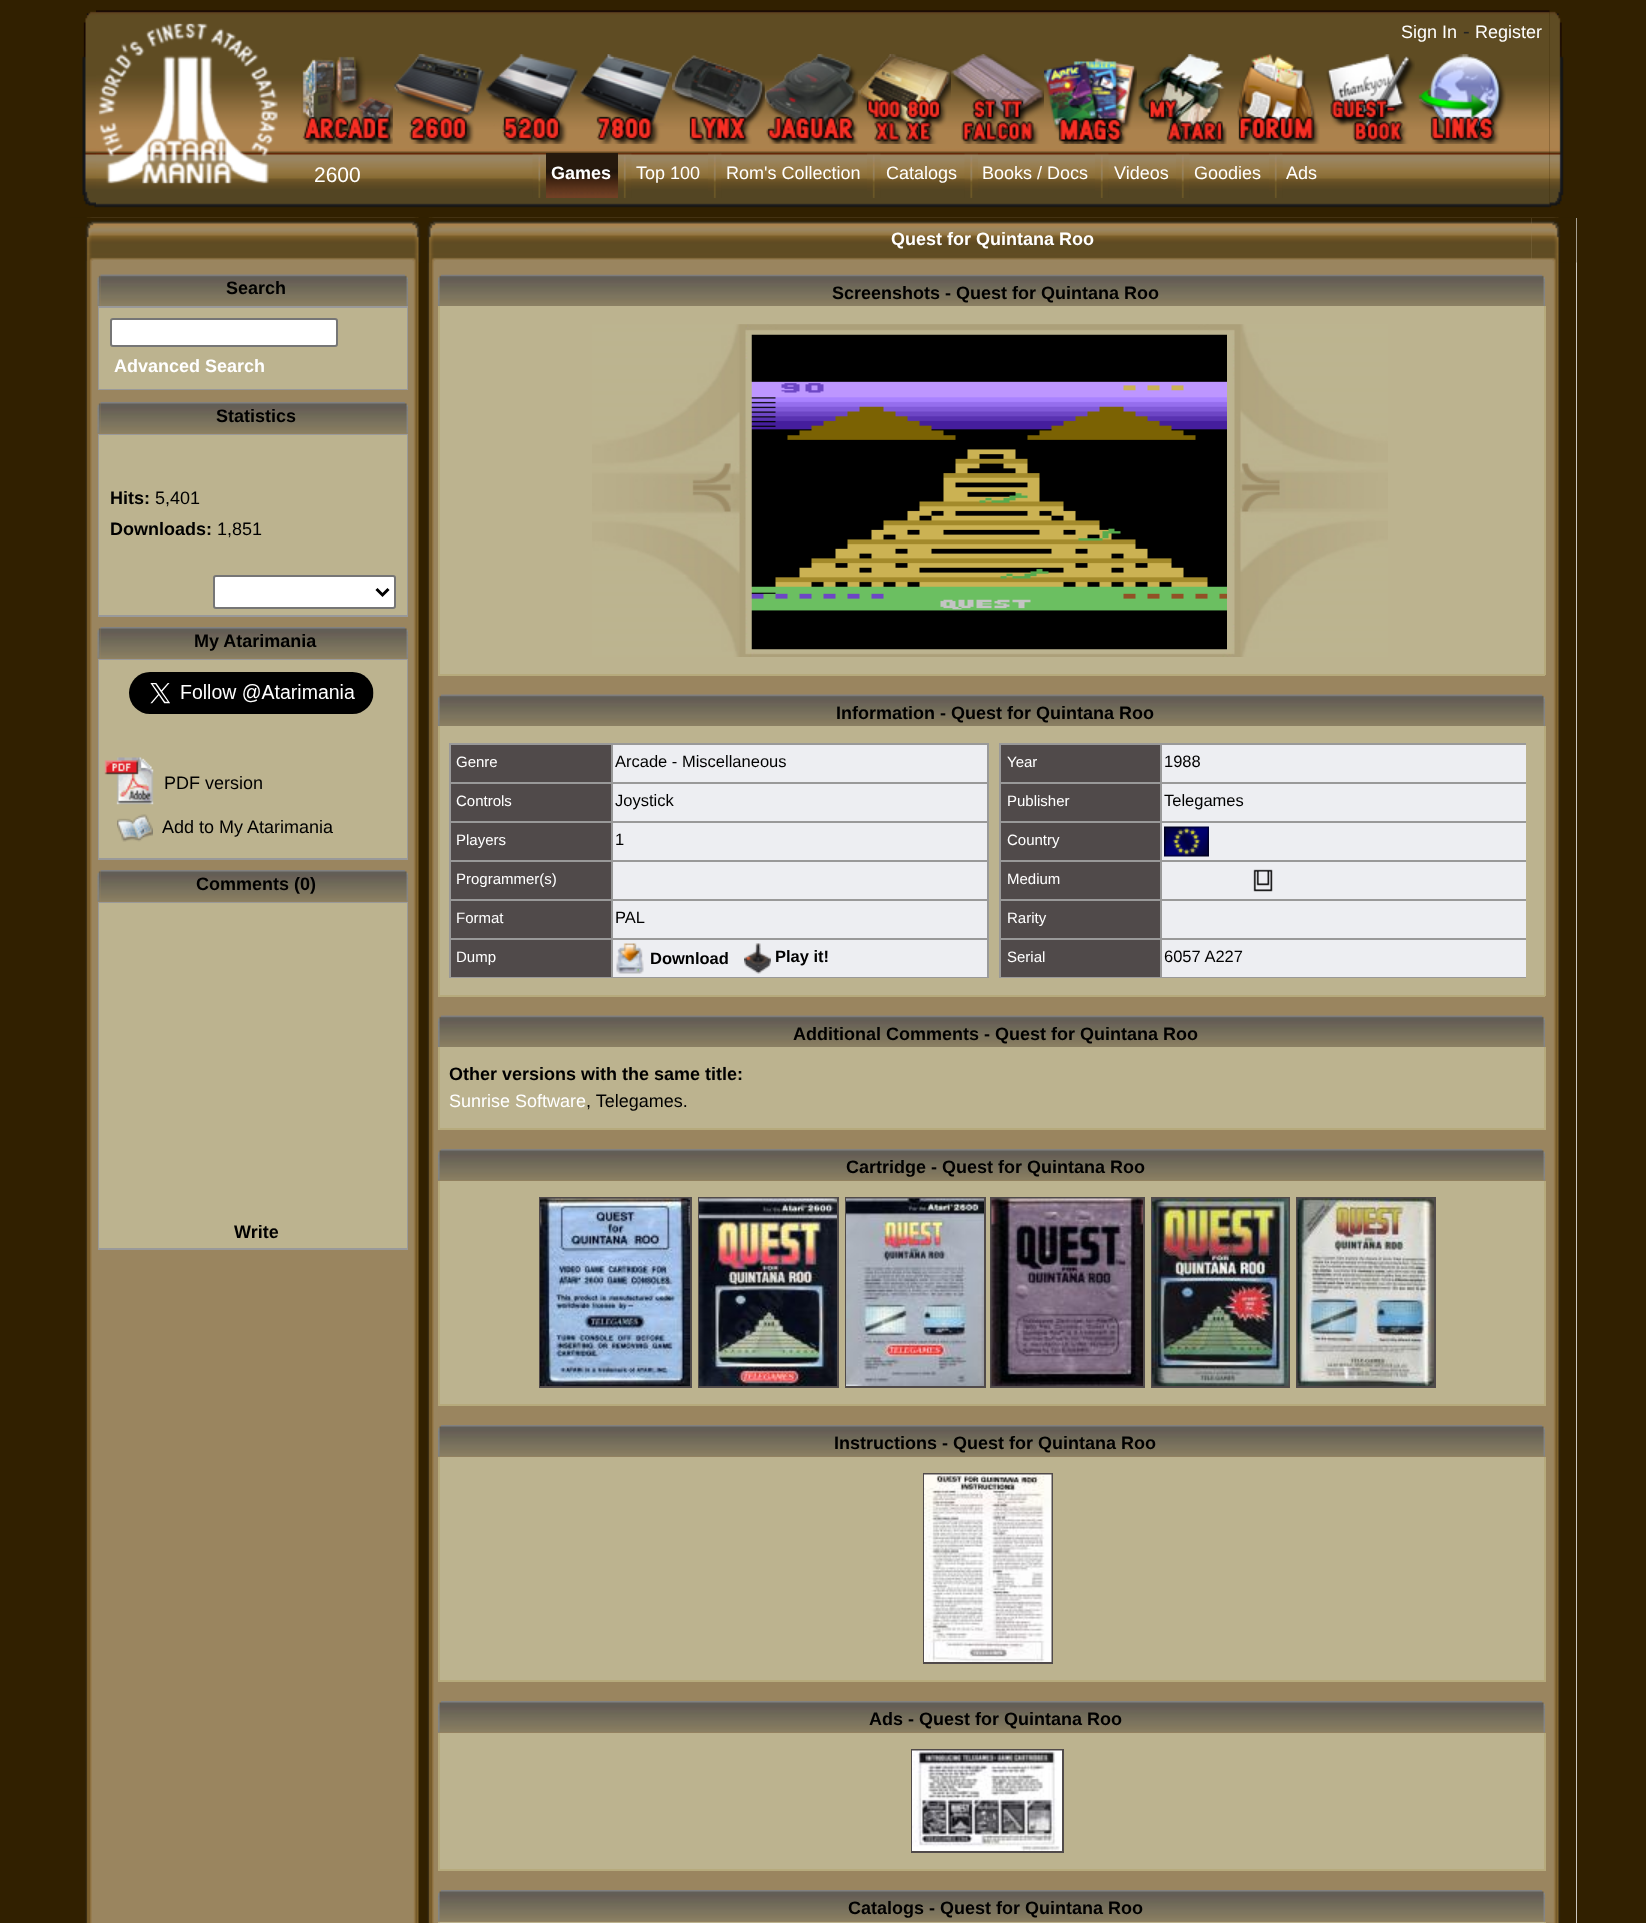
<svg xmlns="http://www.w3.org/2000/svg" xmlns:xlink="http://www.w3.org/1999/xlink" width="1646" height="1923" viewBox="0 0 1646 1923">
<style>
.cls-1{font:18px Liberation Sans;fill:#ffffff}
.cls-2{font:20px Liberation Sans;fill:#222222}
.cls-3{font:21px Liberation Sans;fill:#ffffff}
.cls-4{font:bold 18px Liberation Sans;fill:#ffffff}
.cls-5{font:bold 18px Liberation Sans;fill:#000000}
.cls-6{font:18px Liberation Sans;fill:#000000}
.cls-7{font:15px Liberation Sans;fill:#ffffff}
.cls-8{font:16.5px Liberation Sans;fill:#000000}
.cls-9{font:bold 16.5px Liberation Sans;fill:#000000}
</style>
<rect width="100%" height="100%" fill="#312000"/>
<image xlink:href="image0.png" x="82" y="11" width="14" height="197"/>
<image xlink:href="image21.png" x="1549" y="11" width="15" height="197"/>
<image xlink:href="image1.png" x="96" y="10" width="1454" height="198"/>
<image xlink:href="image2.png" x="98" y="23" width="180" height="161"/>
<image xlink:href="image3.png" x="301" y="56" width="92" height="88"/>
<image xlink:href="image4.png" x="393" y="54" width="92" height="90"/>
<image xlink:href="image5.png" x="486" y="54" width="92" height="90"/>
<image xlink:href="image6.png" x="580" y="54" width="92" height="90"/>
<image xlink:href="image7.png" x="672" y="55" width="93" height="89"/>
<image xlink:href="image8.png" x="765" y="54" width="93" height="90"/>
<image xlink:href="image9.png" x="858" y="54" width="93" height="90"/>
<image xlink:href="image10.png" x="951" y="54" width="93" height="90"/>
<image xlink:href="image11.png" x="1044" y="58" width="93" height="86"/>
<image xlink:href="image12.png" x="1138" y="54" width="89" height="90"/>
<image xlink:href="image13.png" x="1237" y="54" width="83" height="90"/>
<image xlink:href="image14.png" x="1326" y="54" width="89" height="90"/>
<image xlink:href="image15.png" x="1418" y="54" width="88" height="90"/>
<image xlink:href="image16.png" x="532" y="153" width="14" height="45"/>
<image xlink:href="image17.png" x="546" y="153" width="72" height="45"/>
<image xlink:href="image18.png" x="618" y="153" width="14" height="45"/>
<image xlink:href="image19.png" x="708" y="153" width="14" height="45"/>
<image xlink:href="image18.png" x="867" y="153" width="14" height="45"/>
<image xlink:href="image20.png" x="964" y="153" width="14" height="45"/>
<image xlink:href="image19.png" x="1095" y="153" width="14" height="45"/>
<image xlink:href="image19.png" x="1176" y="153" width="14" height="45"/>
<image xlink:href="image18.png" x="1269" y="153" width="14" height="45"/>
<rect fill="#ffffff" x="1576" y="218" width="1" height="1705"/>
<image xlink:href="image22.png" x="69" y="217" width="1508" height="1706"/>
<image xlink:href="image23.png" x="85" y="217" width="29" height="44"/>
<image xlink:href="image24.png" x="114" y="217" width="1418" height="46"/>
<image xlink:href="image25.png" x="1531" y="217" width="46" height="46"/>
<image xlink:href="image26.png" x="97" y="275" width="4" height="31"/>
<image xlink:href="image27.png" x="100" y="274" width="305" height="32"/>
<image xlink:href="image28.png" x="405" y="275" width="3" height="31"/>
<rect fill="none" stroke="#999999" stroke-width="2" x="99" y="307" width="308" height="82"/>
<rect fill="#bcb38f" x="99" y="308" width="308" height="81"/>
<rect fill="#ffffff" stroke="#767676" stroke-width="2" x="111" y="319" width="226" height="27" rx="2"/>
<image xlink:href="image29.png" x="97" y="403" width="4" height="31"/>
<image xlink:href="image30.png" x="100" y="402" width="305" height="32"/>
<image xlink:href="image31.png" x="405" y="403" width="3" height="31"/>
<rect fill="none" stroke="#999999" stroke-width="2" x="99" y="435" width="308" height="181"/>
<rect fill="#bcb38f" x="99" y="435" width="308" height="180"/>
<rect fill="#ffffff" stroke="#767676" stroke-width="2" x="214" y="576" width="181" height="32" rx="2"/>
<path fill="none" stroke="#000000" stroke-width="3" d="M376.5 589L382.5 595L388.5 589"/>
<image xlink:href="image29.png" x="97" y="628" width="4" height="31"/>
<image xlink:href="image30.png" x="100" y="627" width="305" height="32"/>
<image xlink:href="image31.png" x="405" y="628" width="3" height="31"/>
<rect fill="none" stroke="#999999" stroke-width="2" x="99" y="660" width="308" height="199"/>
<rect fill="#bcb38f" x="99" y="660" width="308" height="198"/>
<image xlink:href="image32.png" x="129" y="672" width="245" height="42"/>
<image xlink:href="image33.png" x="104" y="757" width="50" height="48"/>
<image xlink:href="image34.png" x="117" y="814" width="36" height="28"/>
<image xlink:href="image29.png" x="97" y="871" width="4" height="31"/>
<image xlink:href="image30.png" x="100" y="870" width="305" height="32"/>
<image xlink:href="image31.png" x="405" y="871" width="3" height="31"/>
<rect fill="none" stroke="#999999" stroke-width="2" x="99" y="903" width="308" height="346"/>
<rect fill="#bcb38f" x="99" y="903" width="308" height="345"/>
<image xlink:href="image35.png" x="438" y="275" width="3" height="31"/>
<image xlink:href="image36.png" x="441" y="274" width="1101" height="32"/>
<image xlink:href="image37.png" x="1542" y="275" width="3" height="31"/>
<rect fill="#bcb38f" x="440" y="306" width="1104" height="368"/>
<rect fill="#b6aa7c" x="1544" y="306" width="2" height="369"/>
<rect fill="#b6aa7c" x="438" y="674" width="1107" height="2"/>
<rect fill="#b6aa7c" x="438" y="306" width="2" height="369"/>
<image xlink:href="image38.png" x="592" y="324" width="796" height="333"/>
<image xlink:href="image39.png" x="751" y="334" width="476" height="316"/>
<image xlink:href="image35.png" x="438" y="695" width="3" height="31"/>
<image xlink:href="image40.png" x="441" y="694" width="1101" height="32"/>
<image xlink:href="image37.png" x="1542" y="695" width="3" height="31"/>
<rect fill="#bcb38f" x="440" y="726" width="1104" height="269"/>
<rect fill="#b6aa7c" x="1544" y="726" width="2" height="270"/>
<rect fill="#b6aa7c" x="438" y="995" width="1107" height="2"/>
<rect fill="#b6aa7c" x="438" y="726" width="2" height="270"/>
<rect fill="#504a4a" x="451" y="745" width="160" height="37"/>
<rect fill="#999999" x="611" y="743" width="378" height="2"/>
<rect fill="#999999" x="611" y="782" width="378" height="2"/>
<rect fill="#999999" x="611" y="821" width="378" height="2"/>
<rect fill="#999999" x="611" y="860" width="378" height="2"/>
<rect fill="#999999" x="611" y="899" width="378" height="2"/>
<rect fill="#999999" x="611" y="938" width="378" height="2"/>
<rect fill="#999999" x="449" y="977" width="540" height="1"/>
<rect fill="#999999" x="611" y="938" width="2" height="40"/>
<rect fill="#999999" x="449" y="938" width="163" height="2"/>
<rect fill="#999999" x="611" y="899" width="2" height="40"/>
<rect fill="#999999" x="449" y="899" width="163" height="2"/>
<rect fill="#999999" x="611" y="860" width="2" height="40"/>
<rect fill="#999999" x="449" y="860" width="163" height="2"/>
<rect fill="#999999" x="611" y="821" width="2" height="40"/>
<rect fill="#999999" x="449" y="821" width="163" height="2"/>
<rect fill="#999999" x="611" y="782" width="2" height="40"/>
<rect fill="#999999" x="449" y="782" width="163" height="2"/>
<rect fill="#999999" x="611" y="743" width="2" height="40"/>
<rect fill="#999999" x="449" y="743" width="163" height="2"/>
<rect fill="#999999" x="449" y="938" width="2" height="40"/>
<rect fill="#999999" x="449" y="899" width="2" height="40"/>
<rect fill="#999999" x="449" y="860" width="2" height="40"/>
<rect fill="#999999" x="449" y="821" width="2" height="40"/>
<rect fill="#999999" x="449" y="782" width="2" height="40"/>
<rect fill="#999999" x="449" y="743" width="2" height="40"/>
<rect fill="#edeef2" x="613" y="745" width="374" height="37"/>
<rect fill="#999999" x="987" y="938" width="2" height="40"/>
<rect fill="#999999" x="987" y="899" width="2" height="40"/>
<rect fill="#999999" x="987" y="860" width="2" height="40"/>
<rect fill="#999999" x="987" y="821" width="2" height="40"/>
<rect fill="#999999" x="987" y="782" width="2" height="40"/>
<rect fill="#999999" x="987" y="743" width="2" height="40"/>
<rect fill="#504a4a" x="1001" y="745" width="159" height="37"/>
<rect fill="#999999" x="1160" y="743" width="366" height="2"/>
<rect fill="#999999" x="1160" y="782" width="366" height="2"/>
<rect fill="#999999" x="1160" y="821" width="366" height="2"/>
<rect fill="#999999" x="1160" y="860" width="366" height="2"/>
<rect fill="#999999" x="1160" y="899" width="366" height="2"/>
<rect fill="#999999" x="1160" y="938" width="366" height="2"/>
<rect fill="#999999" x="999" y="977" width="527" height="1"/>
<rect fill="#999999" x="1160" y="938" width="2" height="40"/>
<rect fill="#999999" x="999" y="938" width="162" height="2"/>
<rect fill="#999999" x="1160" y="899" width="2" height="40"/>
<rect fill="#999999" x="999" y="899" width="162" height="2"/>
<rect fill="#999999" x="1160" y="860" width="2" height="40"/>
<rect fill="#999999" x="999" y="860" width="162" height="2"/>
<rect fill="#999999" x="1160" y="821" width="2" height="40"/>
<rect fill="#999999" x="999" y="821" width="162" height="2"/>
<rect fill="#999999" x="1160" y="782" width="2" height="40"/>
<rect fill="#999999" x="999" y="782" width="162" height="2"/>
<rect fill="#999999" x="1160" y="743" width="2" height="40"/>
<rect fill="#999999" x="999" y="743" width="162" height="2"/>
<rect fill="#999999" x="999" y="938" width="2" height="40"/>
<rect fill="#999999" x="999" y="899" width="2" height="40"/>
<rect fill="#999999" x="999" y="860" width="2" height="40"/>
<rect fill="#999999" x="999" y="821" width="2" height="40"/>
<rect fill="#999999" x="999" y="782" width="2" height="40"/>
<rect fill="#999999" x="999" y="743" width="2" height="40"/>
<rect fill="#edeef2" x="1162" y="745" width="364" height="37"/>
<rect fill="#504a4a" x="451" y="784" width="160" height="37"/>
<rect fill="#edeef2" x="613" y="784" width="374" height="37"/>
<rect fill="#504a4a" x="1001" y="784" width="159" height="37"/>
<rect fill="#edeef2" x="1162" y="784" width="364" height="37"/>
<rect fill="#504a4a" x="451" y="823" width="160" height="37"/>
<rect fill="#edeef2" x="613" y="823" width="374" height="37"/>
<rect fill="#504a4a" x="1001" y="823" width="159" height="37"/>
<rect fill="#edeef2" x="1162" y="823" width="364" height="37"/>
<image xlink:href="image41.png" x="1164" y="826" width="45" height="31"/>
<rect fill="#504a4a" x="451" y="862" width="160" height="37"/>
<rect fill="#edeef2" x="613" y="862" width="374" height="37"/>
<rect fill="#504a4a" x="1001" y="862" width="159" height="37"/>
<rect fill="#edeef2" x="1162" y="862" width="364" height="37"/>
<image xlink:href="image42.png" x="1253" y="869" width="20" height="23"/>
<rect fill="#504a4a" x="451" y="901" width="160" height="37"/>
<rect fill="#edeef2" x="613" y="901" width="374" height="37"/>
<rect fill="#504a4a" x="1001" y="901" width="159" height="37"/>
<rect fill="#edeef2" x="1162" y="901" width="364" height="37"/>
<rect fill="#504a4a" x="451" y="940" width="160" height="37"/>
<rect fill="#edeef2" x="613" y="940" width="374" height="37"/>
<image xlink:href="image43.png" x="616" y="943" width="28" height="31"/>
<image xlink:href="image44.png" x="744" y="943" width="27" height="31"/>
<rect fill="#504a4a" x="1001" y="940" width="159" height="37"/>
<rect fill="#edeef2" x="1162" y="940" width="364" height="37"/>
<image xlink:href="image35.png" x="438" y="1016" width="3" height="31"/>
<image xlink:href="image40.png" x="441" y="1015" width="1101" height="32"/>
<image xlink:href="image37.png" x="1542" y="1016" width="3" height="31"/>
<rect fill="#bcb38f" x="440" y="1047" width="1104" height="81"/>
<rect fill="#b6aa7c" x="1544" y="1047" width="2" height="83"/>
<rect fill="#b6aa7c" x="438" y="1128" width="1107" height="2"/>
<rect fill="#b6aa7c" x="438" y="1047" width="2" height="83"/>
<image xlink:href="image45.png" x="438" y="1150" width="3" height="31"/>
<image xlink:href="image46.png" x="441" y="1149" width="1101" height="32"/>
<image xlink:href="image47.png" x="1542" y="1150" width="3" height="31"/>
<rect fill="#bcb38f" x="440" y="1181" width="1104" height="223"/>
<rect fill="#b6aa7c" x="1544" y="1181" width="2" height="225"/>
<rect fill="#b6aa7c" x="438" y="1404" width="1107" height="2"/>
<rect fill="#b6aa7c" x="438" y="1181" width="2" height="225"/>
<rect fill="none" stroke="#504a4a" stroke-width="2" x="540" y="1198" width="151" height="189"/>
<image xlink:href="image48.png" x="540" y="1198" width="150" height="188"/>
<rect fill="none" stroke="#504a4a" stroke-width="2" x="699" y="1198" width="139" height="189"/>
<image xlink:href="image49.png" x="699" y="1198" width="138" height="188"/>
<rect fill="none" stroke="#504a4a" stroke-width="2" x="846" y="1198" width="139" height="189"/>
<image xlink:href="image50.png" x="846" y="1198" width="138" height="188"/>
<rect fill="none" stroke="#504a4a" stroke-width="2" x="991" y="1198" width="153" height="189"/>
<image xlink:href="image51.png" x="991" y="1198" width="152" height="188"/>
<rect fill="none" stroke="#504a4a" stroke-width="2" x="1152" y="1198" width="137" height="189"/>
<image xlink:href="image52.png" x="1152" y="1198" width="137" height="188"/>
<rect fill="none" stroke="#504a4a" stroke-width="2" x="1297" y="1198" width="138" height="189"/>
<image xlink:href="image53.png" x="1297" y="1198" width="137" height="188"/>
<image xlink:href="image45.png" x="438" y="1426" width="3" height="31"/>
<image xlink:href="image46.png" x="441" y="1425" width="1101" height="32"/>
<image xlink:href="image47.png" x="1542" y="1426" width="3" height="31"/>
<rect fill="#bcb38f" x="440" y="1457" width="1104" height="223"/>
<rect fill="#b6aa7c" x="1544" y="1457" width="2" height="225"/>
<rect fill="#b6aa7c" x="438" y="1680" width="1107" height="2"/>
<rect fill="#b6aa7c" x="438" y="1457" width="2" height="225"/>
<rect fill="none" stroke="#504a4a" stroke-width="2" x="924" y="1474" width="128" height="189"/>
<image xlink:href="image54.png" x="924" y="1474" width="128" height="188"/>
<image xlink:href="image45.png" x="438" y="1702" width="3" height="31"/>
<image xlink:href="image46.png" x="441" y="1701" width="1101" height="32"/>
<image xlink:href="image47.png" x="1542" y="1702" width="3" height="31"/>
<rect fill="#bcb38f" x="440" y="1733" width="1104" height="136"/>
<rect fill="#b6aa7c" x="1544" y="1733" width="2" height="138"/>
<rect fill="#b6aa7c" x="438" y="1869" width="1107" height="2"/>
<rect fill="#b6aa7c" x="438" y="1733" width="2" height="138"/>
<rect fill="none" stroke="#504a4a" stroke-width="2" x="912" y="1750" width="151" height="102"/>
<image xlink:href="image55.png" x="912" y="1750" width="150" height="101"/>
<image xlink:href="image45.png" x="438" y="1891" width="3" height="31"/>
<image xlink:href="image46.png" x="441" y="1890" width="1101" height="32"/>
<image xlink:href="image47.png" x="1542" y="1891" width="3" height="31"/>
<rect fill="#bcb38f" x="438" y="1922" width="1107" height="1"/>
<rect fill="#b6aa7c" x="1544" y="1922" width="2" height="1"/>
<rect fill="#b6aa7c" x="438" y="1922" width="2" height="1"/>
<image xlink:href="image56.png" x="692" y="463" width="39" height="49"/>
<image xlink:href="image57.png" x="1241" y="463" width="39" height="49"/>
<text class="cls-1" x="1401" y="38">Sign In</text>
<text class="cls-2" x="1463" y="38">-</text>
<text class="cls-1" x="1475" y="38">Register</text>
<text class="cls-3" x="314" y="182">2600</text>
<text class="cls-4" x="551" y="179">Games</text>
<text class="cls-1" x="636" y="179">Top 100</text>
<text class="cls-1" x="726" y="179">Rom's Collection</text>
<text class="cls-1" x="886" y="179">Catalogs</text>
<text class="cls-1" x="982" y="179">Books / Docs</text>
<text class="cls-1" x="1114" y="179">Videos</text>
<text class="cls-1" x="1194" y="179">Goodies</text>
<text class="cls-1" x="1286" y="179">Ads</text>
<text class="cls-4" x="891" y="245">Quest for Quintana Roo</text>
<text class="cls-5" x="226" y="294">Search</text>
<text class="cls-4" x="114" y="372">Advanced Search</text>
<text class="cls-5" x="216" y="422">Statistics</text>
<text class="cls-5" x="110" y="504">Hits:</text>
<text class="cls-6" x="155" y="504">5,401</text>
<text class="cls-5" x="110" y="535">Downloads:</text>
<text class="cls-6" x="217" y="535">1,851</text>
<text class="cls-5" x="194" y="647">My Atarimania</text>
<text class="cls-6" x="164" y="789">PDF version</text>
<text class="cls-6" x="162" y="833">Add to My Atarimania</text>
<text class="cls-5" x="196" y="890">Comments (0)</text>
<text class="cls-5" x="234" y="1238">Write</text>
<text class="cls-5" x="832" y="299">Screenshots - Quest for Quintana Roo</text>
<text class="cls-5" x="836" y="719">Information - Quest for Quintana Roo</text>
<text class="cls-7" x="456" y="767">Genre</text>
<text class="cls-8" x="615" y="767">Arcade - Miscellaneous</text>
<text class="cls-7" x="1007" y="767">Year</text>
<text class="cls-8" x="1164" y="767">1988</text>
<text class="cls-7" x="456" y="806">Controls</text>
<text class="cls-8" x="615" y="806">Joystick</text>
<text class="cls-7" x="1007" y="806">Publisher</text>
<text class="cls-8" x="1164" y="806">Telegames</text>
<text class="cls-7" x="456" y="845">Players</text>
<text class="cls-8" x="615" y="845">1</text>
<text class="cls-7" x="1007" y="845">Country</text>
<text class="cls-7" x="456" y="884">Programmer(s)</text>
<text class="cls-7" x="1007" y="884">Medium</text>
<text class="cls-7" x="456" y="923">Format</text>
<text class="cls-8" x="615" y="923">PAL</text>
<text class="cls-7" x="1007" y="923">Rarity</text>
<text class="cls-7" x="456" y="962">Dump</text>
<text class="cls-9" x="650" y="964">Download</text>
<text class="cls-9" x="775" y="962">Play it!</text>
<text class="cls-7" x="1007" y="962">Serial</text>
<text class="cls-8" x="1164" y="962">6057 A227</text>
<text class="cls-5" x="793" y="1040">Additional Comments - Quest for Quintana Roo</text>
<text class="cls-5" x="449" y="1080">Other versions with the same title:</text>
<text class="cls-1" x="449" y="1107">Sunrise Software</text>
<text class="cls-6" x="586" y="1107">, Telegames.</text>
<text class="cls-5" x="846" y="1173">Cartridge - Quest for Quintana Roo</text>
<text class="cls-5" x="834" y="1449">Instructions - Quest for Quintana Roo</text>
<text class="cls-5" x="869" y="1725">Ads - Quest for Quintana Roo</text>
<text class="cls-5" x="848" y="1914">Catalogs - Quest for Quintana Roo</text>
</svg>
